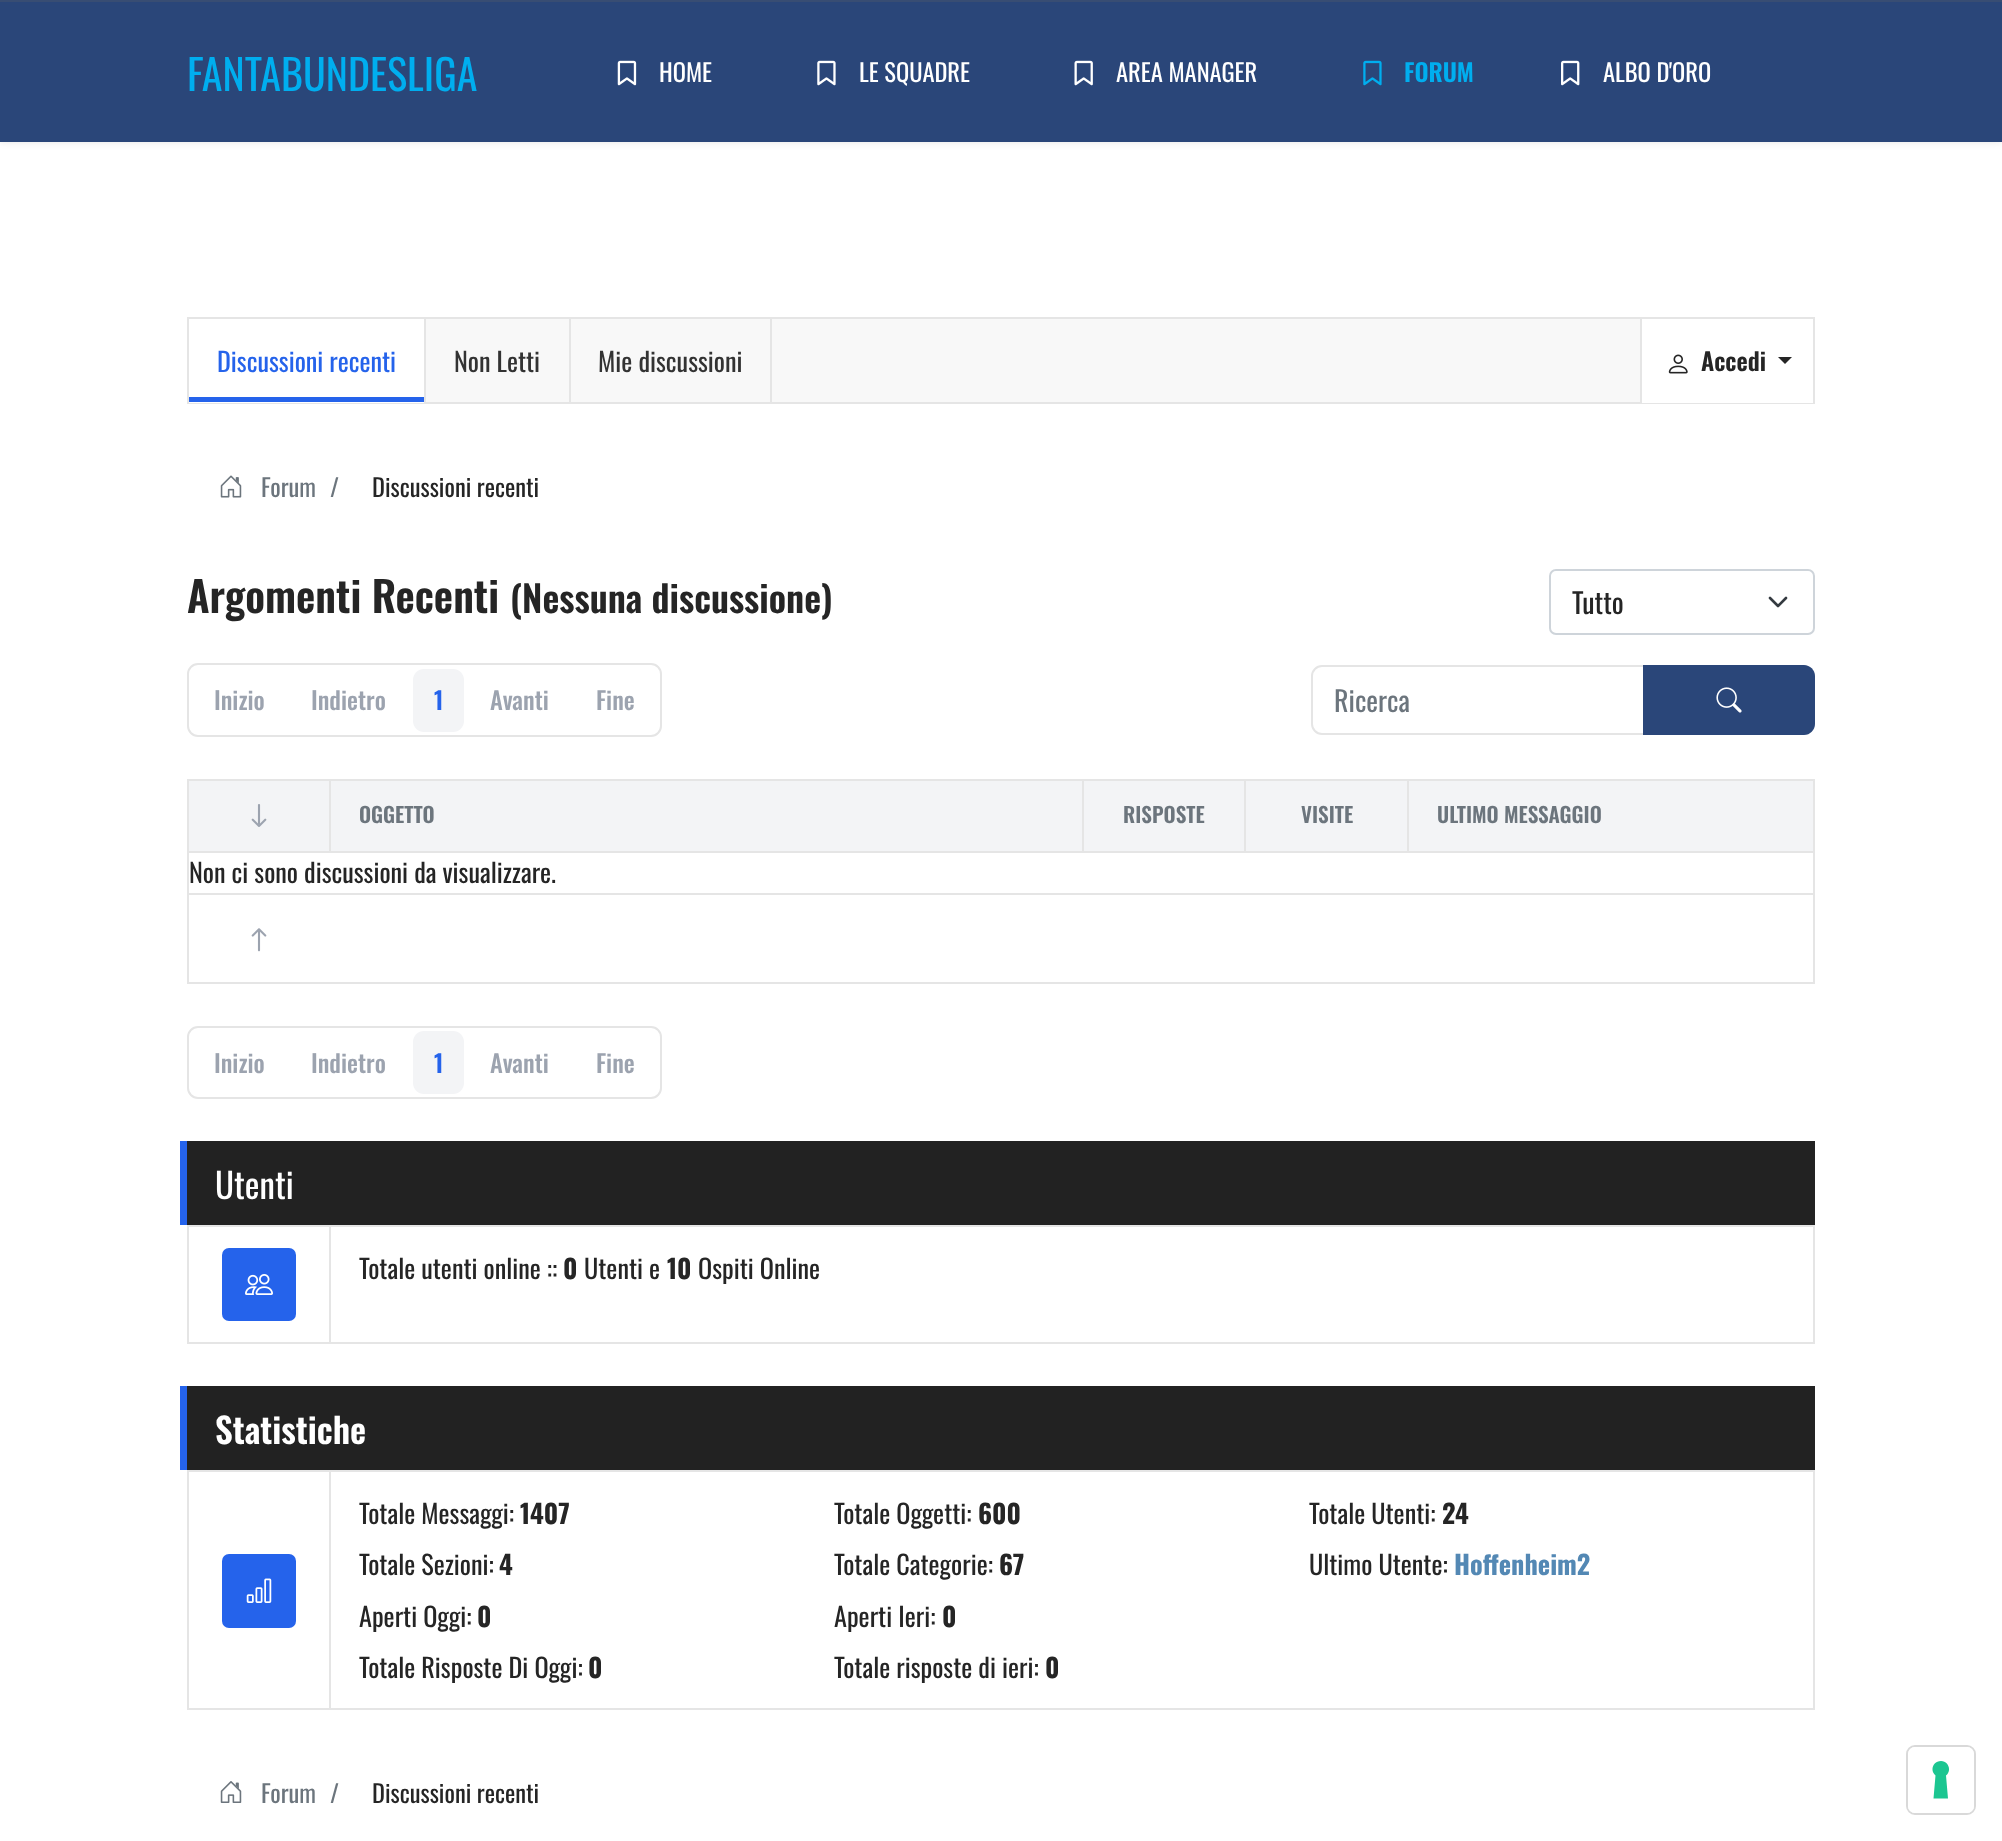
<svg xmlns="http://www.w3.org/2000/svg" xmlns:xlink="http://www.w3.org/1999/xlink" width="2002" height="1841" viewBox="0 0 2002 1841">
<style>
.cls-1{font:42px Oswald;fill:#00aeef}
.cls-2{font:24.5px Oswald;fill:#ffffff}
.cls-3{font:600 24.5px Oswald;fill:#00aeef}
.cls-4{font:26.25px Oswald;fill:#2563eb}
.cls-5{font:26.25px Oswald;fill:#333333}
.cls-6{font:600 24.5px Oswald;fill:#252525}
.cls-7{font:24.5px Oswald;fill:#6c757d}
.cls-8{font:24.5px Oswald;fill:#252525}
.cls-9{font:600 42px Oswald;fill:#252525}
.cls-10{font:600 36.75px Oswald;fill:#252525}
.cls-11{font:28px Oswald;fill:#252525}
.cls-12{font:500 24.5px Oswald;fill:#9ca3af}
.cls-13{font:600 24.5px Oswald;fill:#2563eb}
.cls-14{font:28px Oswald;fill:#6c757d}
.cls-15{font:600 21px Oswald;fill:#6c757d}
.cls-16{font:26.25px Oswald;fill:#252525}
.cls-17{font:35px Oswald;fill:#ffffff}
.cls-18{font:bold 26.25px Oswald;fill:#252525}
.cls-19{font:600 35px Oswald;fill:#ffffff}
.cls-20{font:bold 26.25px Oswald;fill:#5388b4}
</style>
<rect width="100%" height="100%" fill="#ffffff"/>
<rect fill="#000000" fill-opacity="0.1" filter="blur(3.5px)" x="0" y="0" width="2002" height="142"/>
<rect fill="#2a4679" x="0" y="2" width="2002" height="140"/>
<rect fill="#384d73" x="0" y="0" width="2002" height="2"/>
<image xlink:href="image0.png" x="617" y="60" width="20" height="26"/>
<image xlink:href="image1.png" x="817" y="60" width="19" height="26"/>
<image xlink:href="image2.png" x="1074" y="60" width="19" height="26"/>
<image xlink:href="image3.png" x="1363" y="60" width="19" height="26"/>
<image xlink:href="image4.png" x="1561" y="60" width="19" height="26"/>
<rect fill="#f8f8f8" x="426" y="319" width="1214" height="83"/>
<rect fill="none" stroke="#e5e5e5" stroke-width="2" x="188" y="318" width="1626" height="85"/>
<rect fill="#ffffff" x="189" y="402" width="235" height="1"/>
<rect fill="#e5e5e5" x="424" y="319" width="2" height="84"/>
<rect fill="#2563eb" x="189" y="397" width="235" height="5"/>
<rect fill="#e5e5e5" x="569" y="319" width="2" height="84"/>
<rect fill="#e5e5e5" x="770" y="319" width="2" height="84"/>
<rect fill="#ffffff" x="1642" y="402" width="171" height="1"/>
<rect fill="#e5e5e5" x="1640" y="319" width="2" height="84"/>
<image xlink:href="image5.png" x="1668" y="354" width="20" height="20"/>
<path fill="#252525" d="M1778 357H1792L1785 364Z"/>
<image xlink:href="image6.png" x="220" y="475" width="22" height="23"/>
<path fill="none" stroke="#343a40" stroke-width="2.6" stroke-linecap="round" stroke-linejoin="round" d="M1770 598L1778 606L1786 598"/>
<rect fill="none" stroke="#ced4da" stroke-width="2" x="1550" y="570" width="264" height="64" rx="6"/>
<rect fill="none" stroke="#e5e5e5" stroke-width="2" x="188" y="664" width="473" height="72" rx="10"/>
<rect fill="#f3f4f6" x="413" y="669" width="51" height="63" rx="11"/>
<path fill="none" stroke="#e5e5e5" stroke-width="2" d="M1322 666H1644V734H1322C1316.5 734 1312 729.5 1312 724V676C1312 670.5 1316.5 666 1322 666Z"/>
<path fill="#2a4679" d="M1643 665H1804C1810 665 1815 670 1815 676V724C1815 730 1810 735 1804 735H1643Z"/>
<image xlink:href="image7.png" x="1716" y="687" width="26" height="26"/>
<rect fill="none" stroke="#e5e5e5" stroke-width="2" x="188" y="780" width="1626" height="203"/>
<rect fill="#f3f4f6" x="189" y="781" width="1624" height="70"/>
<rect fill="#e5e5e5" x="189" y="851" width="1624" height="2"/>
<image xlink:href="image8.png" x="251" y="804" width="16" height="23"/>
<rect fill="#e5e5e5" x="329" y="781" width="2" height="70"/>
<rect fill="#e5e5e5" x="1082" y="781" width="2" height="70"/>
<rect fill="#e5e5e5" x="1244" y="781" width="2" height="70"/>
<rect fill="#e5e5e5" x="1407" y="781" width="2" height="70"/>
<rect fill="#e5e5e5" x="189" y="893" width="1624" height="2"/>
<image xlink:href="image9.png" x="251" y="928" width="16" height="24"/>
<rect fill="none" stroke="#e5e5e5" stroke-width="2" x="188" y="1027" width="473" height="71" rx="10"/>
<rect fill="#f3f4f6" x="413" y="1031" width="51" height="63" rx="11"/>
<rect fill="#222222" x="187" y="1141" width="1628" height="84"/>
<rect fill="#2563eb" x="180" y="1141" width="7" height="84"/>
<rect fill="none" stroke="#e5e5e5" stroke-width="2" x="188" y="1226" width="1626" height="117"/>
<rect fill="#2563eb" x="222" y="1248" width="74" height="73" rx="7"/>
<image xlink:href="image10.png" x="245" y="1274" width="28" height="21"/>
<rect fill="#e5e5e5" x="329" y="1227" width="2" height="115"/>
<rect fill="#222222" x="187" y="1386" width="1628" height="84"/>
<rect fill="#2563eb" x="180" y="1386" width="7" height="84"/>
<rect fill="none" stroke="#e5e5e5" stroke-width="2" x="188" y="1471" width="1626" height="238"/>
<rect fill="#2563eb" x="222" y="1554" width="74" height="74" rx="7"/>
<image xlink:href="image11.png" x="246" y="1578" width="26" height="25"/>
<rect fill="#e5e5e5" x="329" y="1472" width="2" height="236"/>
<image xlink:href="image12.png" x="220" y="1781" width="22" height="22"/>
<rect fill="none" stroke="#d9d9d9" stroke-width="2" x="1907" y="1746" width="68" height="68" rx="8"/>
<rect fill="#ffffff" x="1908" y="1747" width="66" height="66" rx="7"/>
<path fill="#1cc691" fill-rule="evenodd" d="M1941 1761C1948.5 1761 1952 1770.5 1946 1775.5L1948 1798.5H1933.5L1935.5 1775.5C1929.5 1770.5 1933 1761 1941 1761Z"/>
<text class="cls-1" x="187" y="91">FANTABUNDESLIGA</text>
<text class="cls-2" x="659" y="82">HOME</text>
<text class="cls-2" x="859" y="82">LE SQUADRE</text>
<text class="cls-2" x="1116" y="82">AREA MANAGER</text>
<text class="cls-3" x="1404" y="82">FORUM</text>
<text class="cls-2" x="1603" y="82">ALBO D'ORO</text>
<text class="cls-4" x="217" y="372">Discussioni recenti</text>
<text class="cls-5" x="454" y="372">Non Letti</text>
<text class="cls-5" x="598" y="372">Mie discussioni</text>
<text class="cls-6" x="1701" y="371">Accedi</text>
<text class="cls-7" x="261" y="497">Forum</text>
<text class="cls-7" x="330" y="497">/</text>
<text class="cls-8" x="372" y="497">Discussioni recenti</text>
<text class="cls-9" x="187" y="613">Argomenti Recenti</text>
<text class="cls-10" x="510" y="613">(Nessuna discussione)</text>
<text class="cls-11" x="1572" y="614">Tutto</text>
<text class="cls-12" x="214" y="710">Inizio</text>
<text class="cls-12" x="311" y="710">Indietro</text>
<text class="cls-13" x="434" y="710">1</text>
<text class="cls-12" x="490" y="710">Avanti</text>
<text class="cls-12" x="596" y="710">Fine</text>
<text class="cls-14" x="1334" y="712">Ricerca</text>
<text class="cls-15" x="359" y="823">OGGETTO</text>
<text class="cls-15" x="1123" y="823">RISPOSTE</text>
<text class="cls-15" x="1301" y="823">VISITE</text>
<text class="cls-15" x="1437" y="823">ULTIMO MESSAGGIO</text>
<text class="cls-16" x="189" y="883">Non ci sono discussioni da visualizzare.</text>
<text class="cls-12" x="214" y="1073">Inizio</text>
<text class="cls-12" x="311" y="1073">Indietro</text>
<text class="cls-13" x="434" y="1073">1</text>
<text class="cls-12" x="490" y="1073">Avanti</text>
<text class="cls-12" x="596" y="1073">Fine</text>
<text class="cls-17" x="215" y="1199">Utenti</text>
<text class="cls-16" x="359" y="1279">Totale utenti online ::</text>
<text class="cls-18" x="563" y="1279">0</text>
<text class="cls-16" x="584" y="1279">Utenti e</text>
<text class="cls-18" x="667" y="1279">10</text>
<text class="cls-16" x="698" y="1279">Ospiti Online</text>
<text class="cls-19" x="215" y="1444">Statistiche</text>
<text class="cls-16" x="359" y="1524">Totale Messaggi:</text>
<text class="cls-18" x="520" y="1524">1407</text>
<text class="cls-16" x="359" y="1575">Totale Sezioni:</text>
<text class="cls-18" x="499" y="1575">4</text>
<text class="cls-16" x="359" y="1627">Aperti Oggi:</text>
<text class="cls-18" x="477" y="1627">0</text>
<text class="cls-16" x="359" y="1678">Totale Risposte Di Oggi:</text>
<text class="cls-18" x="588" y="1678">0</text>
<text class="cls-16" x="834" y="1524">Totale Oggetti:</text>
<text class="cls-18" x="978" y="1524">600</text>
<text class="cls-16" x="834" y="1575">Totale Categorie:</text>
<text class="cls-18" x="999" y="1575">67</text>
<text class="cls-16" x="834" y="1627">Aperti Ieri:</text>
<text class="cls-18" x="942" y="1627">0</text>
<text class="cls-16" x="834" y="1678">Totale risposte di ieri:</text>
<text class="cls-18" x="1045" y="1678">0</text>
<text class="cls-16" x="1309" y="1524">Totale Utenti:</text>
<text class="cls-18" x="1442" y="1524">24</text>
<text class="cls-16" x="1309" y="1575">Ultimo Utente:</text>
<text class="cls-20" x="1454" y="1575">Hoffenheim2</text>
<text class="cls-7" x="261" y="1803">Forum</text>
<text class="cls-7" x="330" y="1803">/</text>
<text class="cls-8" x="372" y="1803">Discussioni recenti</text>
</svg>
